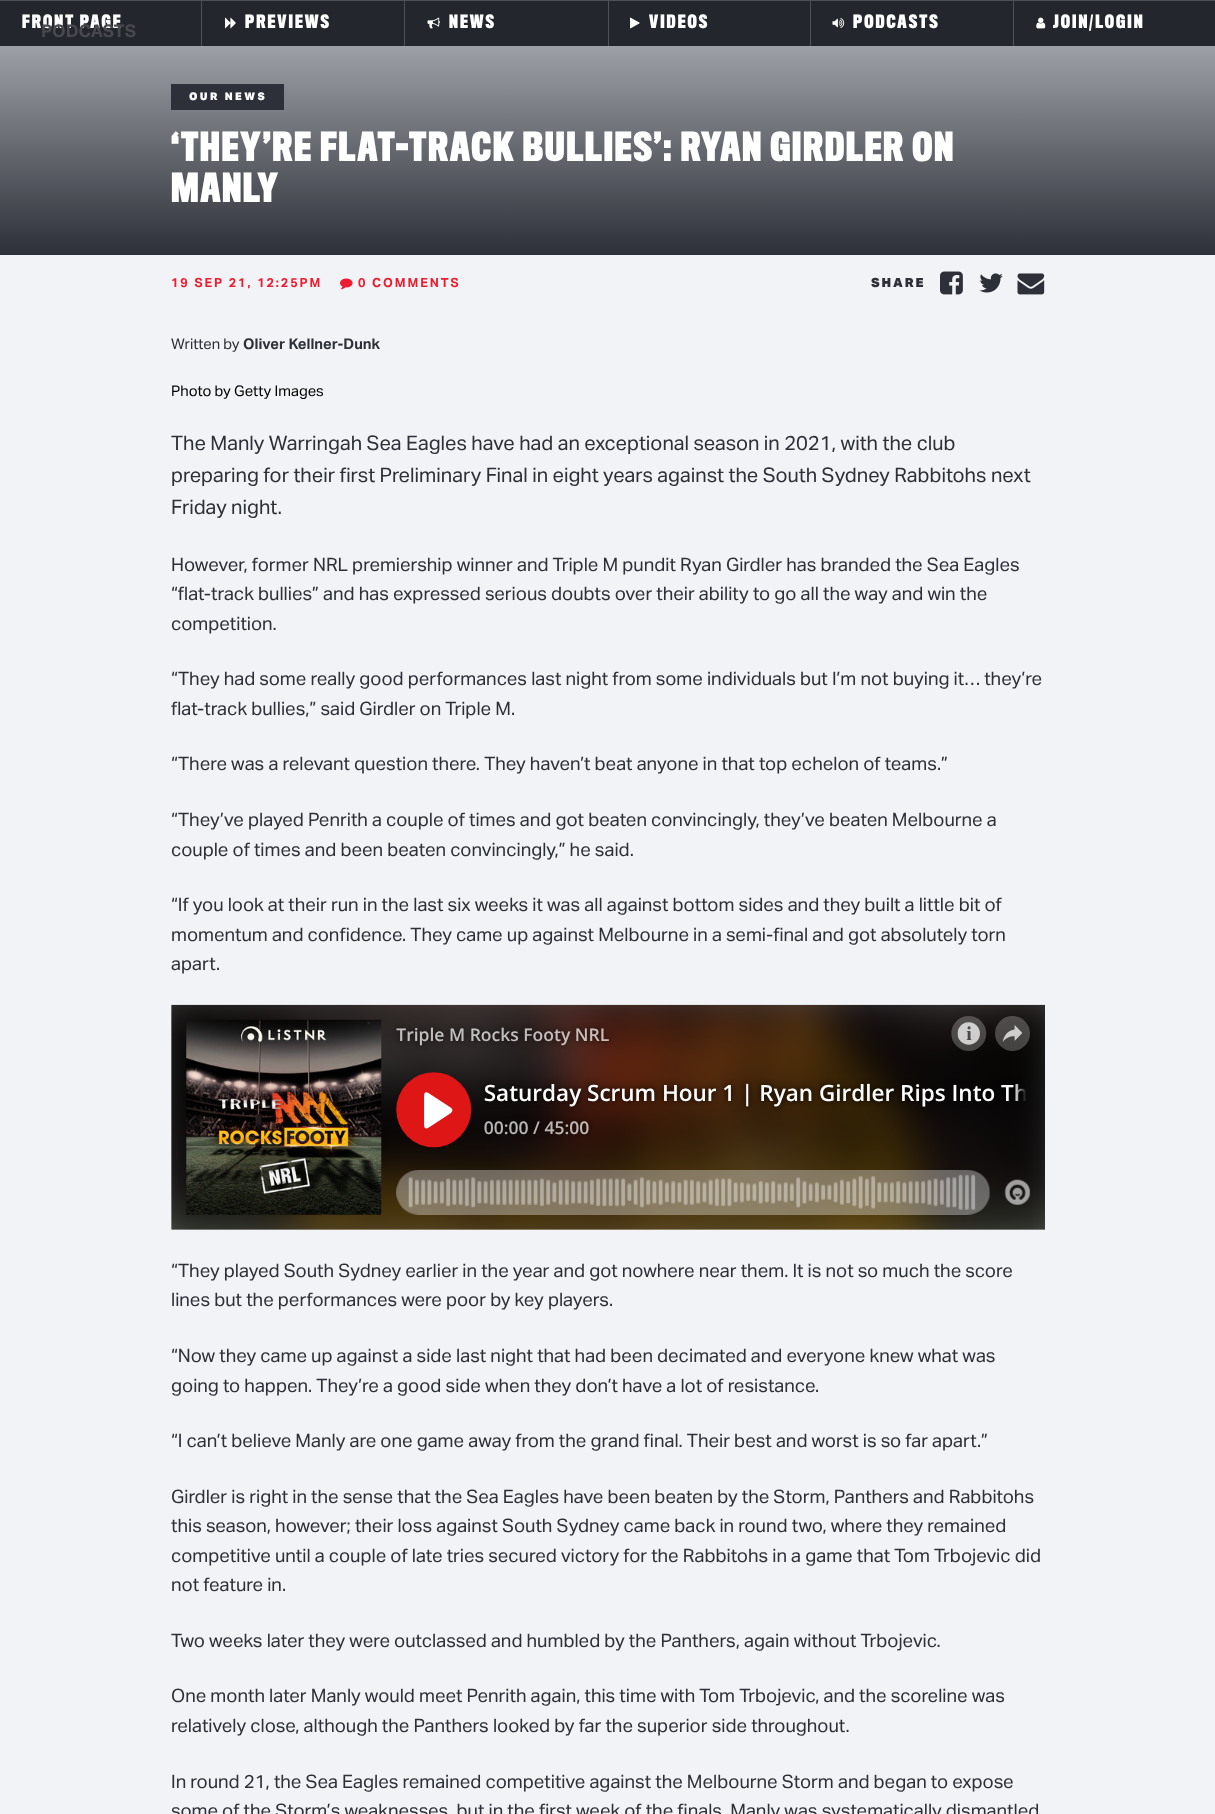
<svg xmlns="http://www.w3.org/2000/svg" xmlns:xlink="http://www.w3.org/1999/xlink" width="1215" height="1814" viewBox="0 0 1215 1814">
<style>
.cls-1{font:bold 17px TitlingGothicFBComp;letter-spacing:2px;fill:#ffffff}
.cls-2{font:bold 17.5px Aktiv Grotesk;fill:#47494f}
.cls-3{font:900 10.5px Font;letter-spacing:2.5px;fill:#ffffff}
.cls-4{font:bold 37px TitlingGothicFBComp;letter-spacing:1.5px;fill:#ffffff}
.cls-5{font:bold 12.6px Aktiv Grotesk;letter-spacing:1.9px;fill:#eb1d2f}
.cls-6{font:900 12.6px Font;letter-spacing:1.9px;fill:#2d3038}
.cls-7{font:14.75px Aktiv Grotesk;fill:#2d3038}
.cls-8{font:bold 14.75px Aktiv Grotesk;fill:#2d3038}
.cls-9{font:14.75px Aktiv Grotesk;fill:#000000}
.cls-10{font:20px Aktiv Grotesk;fill:#2d3038}
.cls-11{font:18.5px Aktiv Grotesk;fill:#2d3038}
</style>
<defs>
<linearGradient id="g1" gradientUnits="userSpaceOnUse" x1="608" y1="255" x2="608" y2="-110"><stop offset="0" stop-color="#2d3038"/><stop offset="1" stop-color="#f1f3f8"/></linearGradient>
</defs>
<rect width="100%" height="100%" fill="#f2f3f7"/>
<rect fill="#505157" x="0" y="0" width="1215" height="1"/>
<rect fill="#24262d" x="0" y="1" width="1215" height="45"/>
<rect fill="#505157" x="201" y="1" width="1" height="45"/>
<rect fill="#505157" x="404" y="1" width="1" height="45"/>
<image xlink:href="image0.png" x="225" y="17" width="11" height="12"/>
<rect fill="#505157" x="608" y="1" width="1" height="45"/>
<image xlink:href="image1.png" x="427" y="17" width="13" height="12"/>
<rect fill="#505157" x="810" y="1" width="1" height="45"/>
<image xlink:href="image2.png" x="630" y="17" width="10" height="12"/>
<rect fill="#505157" x="1013" y="1" width="1" height="45"/>
<image xlink:href="image3.png" x="832" y="18" width="13" height="10"/>
<image xlink:href="image4.png" x="1036" y="17" width="10" height="12"/>
<rect fill="url(#g1)" x="0" y="46" width="1215" height="209"/>
<rect fill="#2d3038" x="171" y="84" width="113" height="26"/>
<image xlink:href="image5.png" x="340" y="278" width="13" height="12"/>
<image xlink:href="image6.png" x="940" y="271" width="23" height="24"/>
<image xlink:href="image7.png" x="979" y="273" width="24" height="20"/>
<image xlink:href="image8.png" x="1017" y="273" width="28" height="22"/>
<image xlink:href="image9.png" x="171" y="1004" width="874" height="226"/>
<text class="cls-1" x="22" y="28">FRONT PAGE</text>
<text class="cls-1" x="245" y="28">PREVIEWS</text>
<text class="cls-1" x="449" y="28">NEWS</text>
<text class="cls-1" x="649" y="28">VIDEOS</text>
<text class="cls-1" x="853" y="28">PODCASTS</text>
<text class="cls-1" x="1053" y="28">JOIN/LOGIN</text>
<text class="cls-2" x="41" y="37">PODCASTS</text>
<text class="cls-3" x="189" y="100">OUR NEWS</text>
<text class="cls-4"><tspan x="171" y="161">‘THEY’RE FLAT-TRACK BULLIES’: RYAN GIRDLER ON</tspan><tspan x="171" y="202">MANLY</tspan></text>
<text class="cls-5" x="171" y="287">19 SEP 21, 12:25PM</text>
<text class="cls-5" x="358" y="287">0 COMMENTS</text>
<text class="cls-6" x="871" y="287">SHARE</text>
<text class="cls-7" x="171" y="349">Written by</text>
<text class="cls-8" x="243" y="349">Oliver Kellner-Dunk</text>
<text class="cls-9" x="171" y="396">Photo by Getty Images</text>
<text class="cls-10"><tspan x="171" y="450">The Manly Warringah Sea Eagles have had an exceptional season in 2021, with the club</tspan><tspan x="171" y="482">preparing for their first Preliminary Final in eight years against the South Sydney Rabbitohs next</tspan><tspan x="171" y="514">Friday night.</tspan></text>
<text class="cls-11"><tspan x="171" y="571">However, former NRL premiership winner and Triple M pundit Ryan Girdler has branded the Sea Eagles</tspan><tspan x="171" y="600">“flat-track bullies” and has expressed serious doubts over their ability to go all the way and win the</tspan><tspan x="171" y="630">competition.</tspan></text>
<text class="cls-11"><tspan x="171" y="685">“They had some really good performances last night from some individuals but I’m not buying it… they’re</tspan><tspan x="171" y="715">flat-track bullies,” said Girdler on Triple M.</tspan></text>
<text class="cls-11" x="171" y="770">“There was a relevant question there. They haven’t beat anyone in that top echelon of teams.”</text>
<text class="cls-11"><tspan x="171" y="826">“They’ve played Penrith a couple of times and got beaten convincingly, they’ve beaten Melbourne a</tspan><tspan x="171" y="856">couple of times and been beaten convincingly,” he said.</tspan></text>
<text class="cls-11"><tspan x="171" y="911">“If you look at their run in the last six weeks it was all against bottom sides and they built a little bit of</tspan><tspan x="171" y="941">momentum and confidence. They came up against Melbourne in a semi-final and got absolutely torn</tspan><tspan x="171" y="970">apart.</tspan></text>
<text class="cls-11"><tspan x="171" y="1277">“They played South Sydney earlier in the year and got nowhere near them. It is not so much the score</tspan><tspan x="171" y="1306">lines but the performances were poor by key players.</tspan></text>
<text class="cls-11"><tspan x="171" y="1362">“Now they came up against a side last night that had been decimated and everyone knew what was</tspan><tspan x="171" y="1392">going to happen. They’re a good side when they don’t have a lot of resistance.</tspan></text>
<text class="cls-11" x="171" y="1447">“I can’t believe Manly are one game away from the grand final. Their best and worst is so far apart.”</text>
<text class="cls-11"><tspan x="171" y="1503">Girdler is right in the sense that the Sea Eagles have been beaten by the Storm, Panthers and Rabbitohs</tspan><tspan x="171" y="1532">this season, however; their loss against South Sydney came back in round two, where they remained</tspan><tspan x="171" y="1562">competitive until a couple of late tries secured victory for the Rabbitohs in a game that Tom Trbojevic did</tspan><tspan x="171" y="1591">not feature in.</tspan></text>
<text class="cls-11" x="171" y="1647">Two weeks later they were outclassed and humbled by the Panthers, again without Trbojevic.</text>
<text class="cls-11"><tspan x="171" y="1702">One month later Manly would meet Penrith again, this time with Tom Trbojevic, and the scoreline was</tspan><tspan x="171" y="1732">relatively close, although the Panthers looked by far the superior side throughout.</tspan></text>
<text class="cls-11"><tspan x="171" y="1788">In round 21, the Sea Eagles remained competitive against the Melbourne Storm and began to expose</tspan><tspan x="171" y="1817">some of the Storm’s weaknesses, but in the first week of the finals, Manly was systematically dismantled</tspan></text>
</svg>
